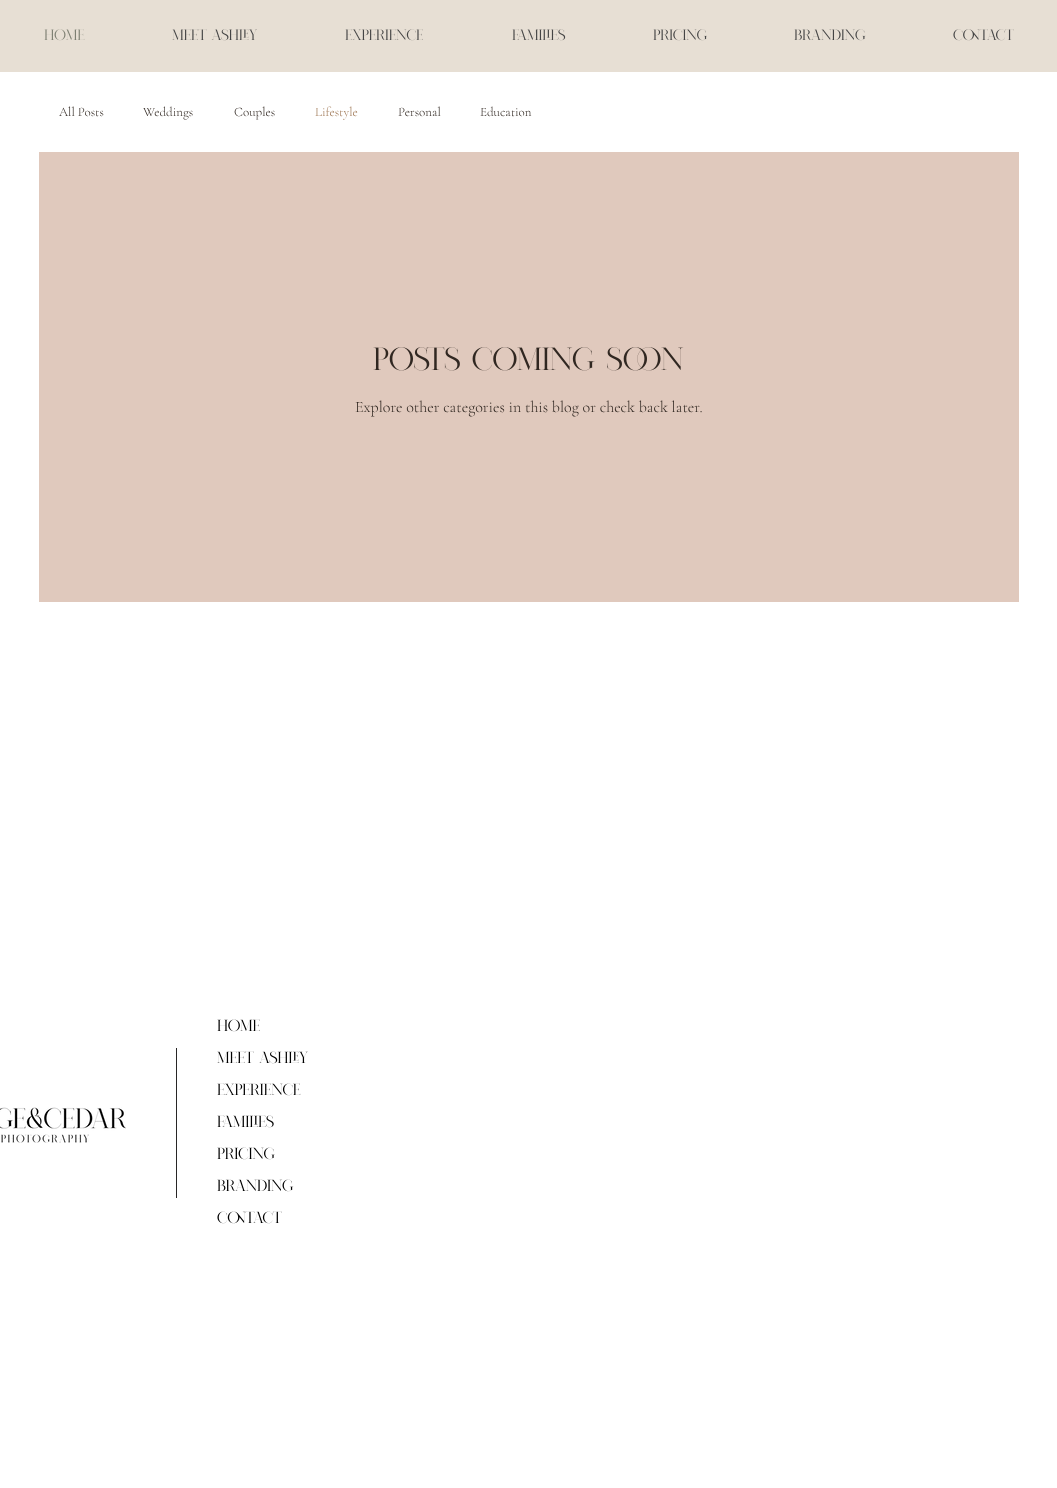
<svg xmlns="http://www.w3.org/2000/svg" xmlns:xlink="http://www.w3.org/1999/xlink" width="1057" height="1488" viewBox="0 0 1057 1488">
<style>
.cls-1{font:300 13px Cormorant Garamond;fill:#302721}
.cls-2{font:300 13px Cormorant Garamond;fill:#9e7653}
.cls-3{font:300 16px Cormorant Garamond;fill:#302721}
</style>
<rect width="100%" height="100%" fill="#ffffff"/>
<rect fill="#e7dfd4" x="0" y="0" width="1057" height="72"/>
<image xlink:href="image0.png" x="44" y="29" width="41" height="12"/>
<image xlink:href="image1.png" x="172" y="29" width="85" height="12"/>
<image xlink:href="image2.png" x="345" y="29" width="78" height="12"/>
<image xlink:href="image3.png" x="512" y="29" width="54" height="12"/>
<image xlink:href="image4.png" x="653" y="29" width="54" height="12"/>
<image xlink:href="image5.png" x="794" y="29" width="72" height="12"/>
<image xlink:href="image6.png" x="953" y="29" width="61" height="12"/>
<rect fill="#e0c9bd" x="39" y="152" width="980" height="450"/>
<image xlink:href="image7.png" x="373" y="347" width="311" height="24"/>
<image xlink:href="image8.png" x="0" y="1107" width="126" height="36"/>
<rect fill="#282626" x="176" y="1048" width="1" height="150"/>
<image xlink:href="image9.png" x="217" y="1019" width="43" height="13"/>
<image xlink:href="image10.png" x="217" y="1051" width="91" height="13"/>
<image xlink:href="image11.png" x="217" y="1083" width="84" height="13"/>
<image xlink:href="image12.png" x="217" y="1115" width="57" height="13"/>
<image xlink:href="image13.png" x="217" y="1147" width="58" height="13"/>
<image xlink:href="image14.png" x="217" y="1179" width="77" height="13"/>
<image xlink:href="image15.png" x="217" y="1211" width="65" height="13"/>
<text class="cls-1" x="59" y="116">All Posts</text>
<text class="cls-1" x="143" y="116">Weddings</text>
<text class="cls-1" x="234" y="116">Couples</text>
<text class="cls-2" x="315" y="116">Lifestyle</text>
<text class="cls-1" x="398" y="116">Personal</text>
<text class="cls-1" x="480" y="116">Education</text>
<text class="cls-3" x="355" y="412">Explore other categories in this blog or check back later.</text>
</svg>
